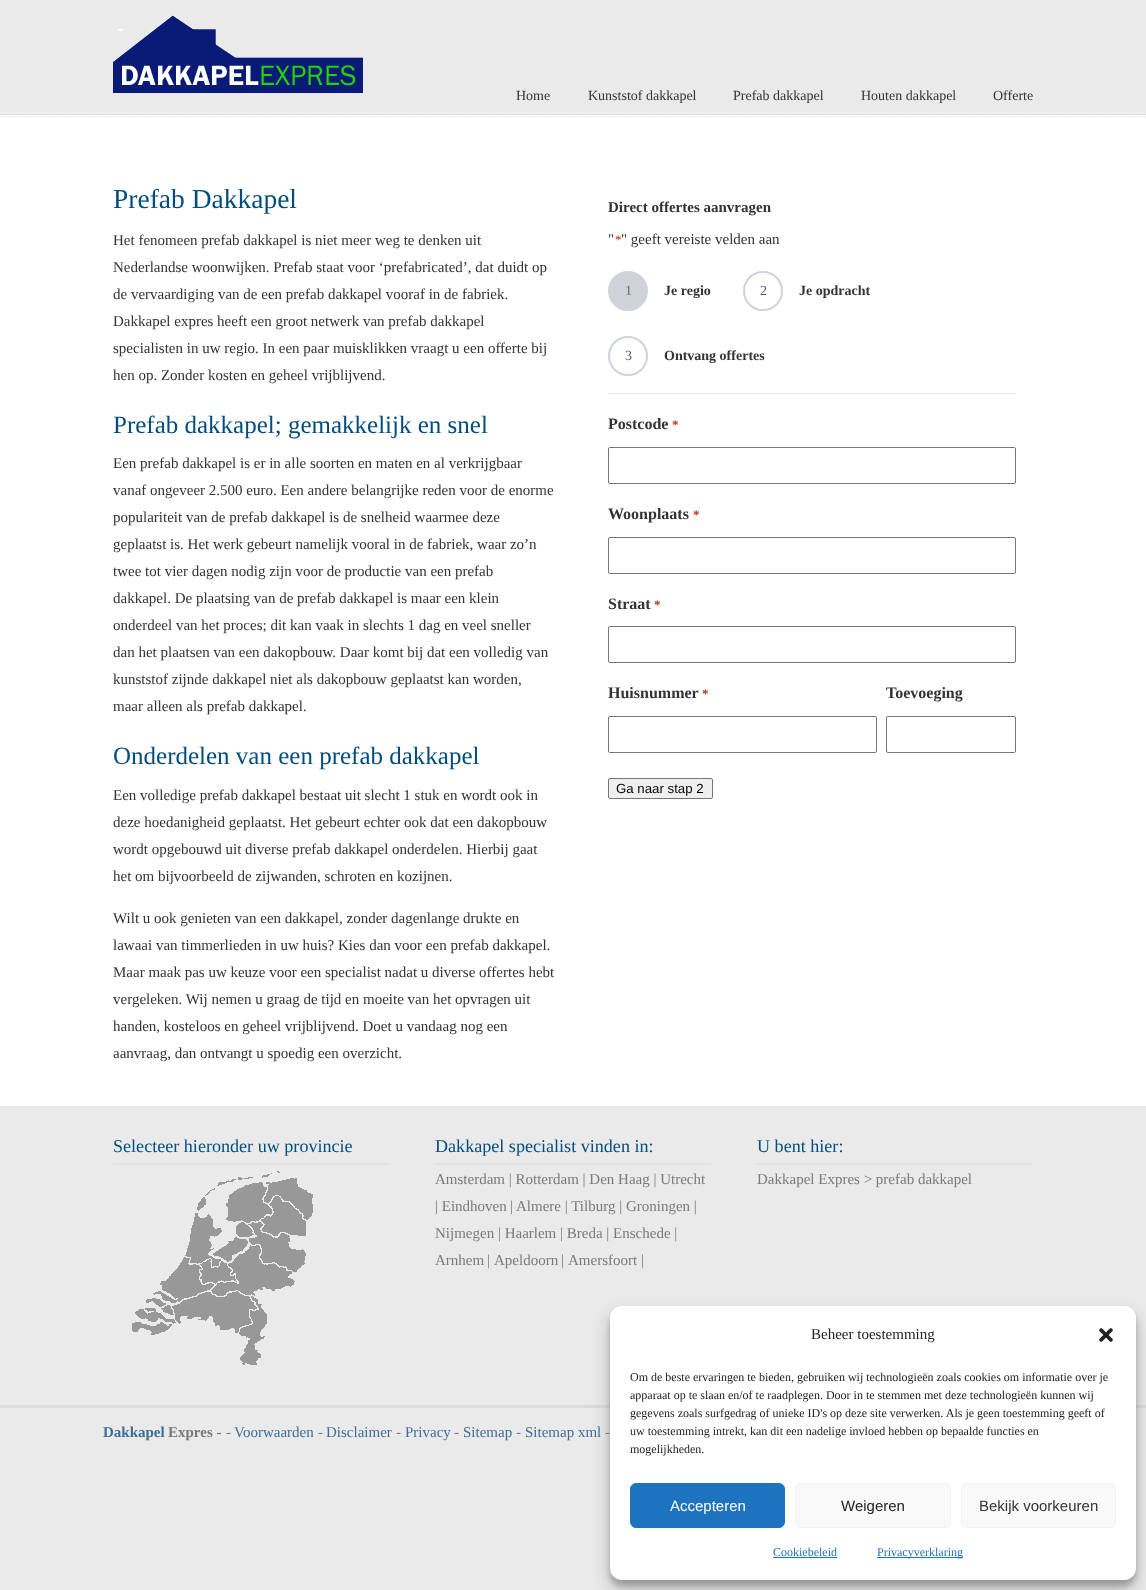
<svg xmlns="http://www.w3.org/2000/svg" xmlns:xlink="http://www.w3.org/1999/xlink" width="1146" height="1590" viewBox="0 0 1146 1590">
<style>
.cls-1{font:14px Liberation Serif;fill:#333333}
.cls-2{font:27.5px Liberation Serif;fill:#004d7e}
.cls-3{font:15px Liberation Serif;fill:#333333}
.cls-4{font:25px Liberation Serif;fill:#004d7e}
.cls-5{font:bold 15px Liberation Serif;fill:#333333}
.cls-6{font:13px Liberation Serif;fill:#c02b0a}
.cls-7{font:14px Liberation Serif;fill:#607382}
.cls-8{font:bold 14px Liberation Serif;fill:#333333}
.cls-9{font:14px Liberation Serif;fill:#585e6a}
.cls-10{font:bold 16px Liberation Serif;fill:#333333}
.cls-11{font:bold 13px Liberation Serif;fill:#c02b0a}
.cls-12{font:13.25px Liberation Sans;fill:#000000}
.cls-13{font:18.1px Liberation Serif;fill:#004d7e}
.cls-14{font:15px Liberation Serif;fill:#797979}
.cls-15{font:bold 15px Liberation Serif;fill:#3d6e97}
.cls-16{font:bold 15px Liberation Serif;fill:#797979}
.cls-17{font:15px Liberation Serif;fill:#3d6e97}
.cls-18{font:15px Liberation Serif;fill:#222222}
.cls-19{font:12px Liberation Serif;fill:#222222}
.cls-20{font:15px Liberation Sans;fill:#ffffff}
.cls-21{font:15px Liberation Sans;fill:#222222}
.cls-22{font:15px Liberation Sans;fill:#333333}
.cls-23{font:12px Liberation Serif;fill:#1e73be}
</style>
<rect width="100%" height="100%" fill="#eaeaea"/>
<image xlink:href="image0.png" x="113" y="15" width="250" height="78"/>
<image xlink:href="image1.png" x="0" y="113" width="1146" height="2"/>
<rect fill="#ffffff" x="0" y="115" width="1146" height="991"/>
<image xlink:href="image2.png" x="0" y="116" width="1146" height="2"/>
<rect fill="#e5e7eb" x="608" y="393" width="408" height="1"/>
<circle fill="#cfd3d9" stroke="#cfd3d9" stroke-width="2" cx="628" cy="291" r="19"/>
<circle fill="none" stroke="#cfd3d9" stroke-width="2" cx="763" cy="291" r="19"/>
<circle fill="none" stroke="#cfd3d9" stroke-width="2" cx="628" cy="356" r="19"/>
<rect fill="none" stroke="#767676" x="608.5" y="447.5" width="407" height="36" rx="1.5"/>
<rect fill="none" stroke="#767676" x="608.5" y="537.5" width="407" height="36" rx="1.5"/>
<rect fill="none" stroke="#767676" x="608.5" y="626.5" width="407" height="36" rx="1.5"/>
<rect fill="none" stroke="#767676" x="608.5" y="716.5" width="268" height="36" rx="1.5"/>
<rect fill="none" stroke="#767676" x="886.5" y="716.5" width="129" height="36" rx="1.5"/>
<rect fill="#efefef" stroke="#767676" x="608.5" y="778.5" width="104" height="20" rx="1.5"/>
<image xlink:href="image3.png" x="113" y="1163" width="276" height="2"/>
<image xlink:href="image4.png" x="132" y="1171" width="181" height="194"/>
<image xlink:href="image3.png" x="435" y="1163" width="276" height="2"/>
<image xlink:href="image3.png" x="757" y="1163" width="276" height="2"/>
<rect fill="#dcdcdc" x="0" y="1405" width="1146" height="3"/>
<rect fill="#000000" fill-opacity="0.23" filter="blur(3px)" x="610" y="1312" width="526" height="274" rx="12"/>
<rect fill="#000000" fill-opacity="0.19" filter="blur(10px)" x="610" y="1316" width="526" height="274" rx="12"/>
<rect fill="#ffffff" x="610" y="1306" width="526" height="274" rx="12"/>
<image xlink:href="image5.png" x="1099" y="1328" width="14" height="14"/>
<rect fill="#1e73be" stroke="#1e73be" x="630.5" y="1483.5" width="154" height="44" rx="5.5"/>
<rect fill="#f9f9f9" stroke="#f2f2f2" x="795.5" y="1483.5" width="155" height="44" rx="5.5"/>
<rect fill="#f9f9f9" stroke="#f2f2f2" x="961.5" y="1483.5" width="154" height="44" rx="5.5"/>
<rect fill="#1e73be" x="773" y="1557" width="64" height="1"/>
<rect fill="#1e73be" x="877" y="1557" width="86" height="1"/>
<text class="cls-1" x="516" y="100">Home</text>
<text class="cls-1" x="588" y="100">Kunststof dakkapel</text>
<text class="cls-1" x="733" y="100">Prefab dakkapel</text>
<text class="cls-1" x="861" y="100">Houten dakkapel</text>
<text class="cls-1" x="993" y="100">Offerte</text>
<text class="cls-2" x="113" y="208">Prefab Dakkapel</text>
<text class="cls-3"><tspan x="113" y="245">Het fenomeen prefab dakkapel is niet meer weg te denken uit</tspan><tspan x="113" y="272">Nederlandse woonwijken. Prefab staat voor ‘prefabricated’, dat duidt op</tspan><tspan x="113" y="299">de vervaardiging van de een prefab dakkapel vooraf in de fabriek.</tspan><tspan x="113" y="326">Dakkapel expres heeft een groot netwerk van prefab dakkapel</tspan><tspan x="113" y="353">specialisten in uw regio. In een paar muisklikken vraagt u een offerte bij</tspan><tspan x="113" y="380">hen op. Zonder kosten en geheel vrijblijvend.</tspan></text>
<text class="cls-4" x="113" y="433">Prefab dakkapel; gemakkelijk en snel</text>
<text class="cls-3"><tspan x="113" y="468">Een prefab dakkapel is er in alle soorten en maten en al verkrijgbaar</tspan><tspan x="113" y="495">vanaf ongeveer 2.500 euro. Een andere belangrijke reden voor de enorme</tspan><tspan x="113" y="522">populariteit van de prefab dakkapel is de snelheid waarmee deze</tspan><tspan x="113" y="549">geplaatst is. Het werk gebeurt namelijk vooral in de fabriek, waar zo’n</tspan><tspan x="113" y="576">twee tot vier dagen nodig zijn voor de productie van een prefab</tspan><tspan x="113" y="603">dakkapel. De plaatsing van de prefab dakkapel is maar een klein</tspan><tspan x="113" y="630">onderdeel van het proces; dit kan vaak in slechts 1 dag en veel sneller</tspan><tspan x="113" y="657">dan het plaatsen van een dakopbouw. Daar komt bij dat een volledig van</tspan><tspan x="113" y="684">kunststof zijnde dakkapel niet als dakopbouw geplaatst kan worden,</tspan><tspan x="113" y="711">maar alleen als prefab dakkapel.</tspan></text>
<text class="cls-4" x="113" y="764">Onderdelen van een prefab dakkapel</text>
<text class="cls-3"><tspan x="113" y="800">Een volledige prefab dakkapel bestaat uit slecht 1 stuk en wordt ook in</tspan><tspan x="113" y="827">deze hoedanigheid geplaatst. Het gebeurt echter ook dat een dakopbouw</tspan><tspan x="113" y="854">wordt opgebouwd uit diverse prefab dakkapel onderdelen. Hierbij gaat</tspan><tspan x="113" y="881">het om bijvoorbeeld de zijwanden, schroten en kozijnen.</tspan></text>
<text class="cls-3"><tspan x="113" y="923">Wilt u ook genieten van een dakkapel, zonder dagenlange drukte en</tspan><tspan x="113" y="950">lawaai van timmerlieden in uw huis? Kies dan voor een prefab dakkapel.</tspan><tspan x="113" y="977">Maar maak pas uw keuze voor een specialist nadat u diverse offertes hebt</tspan><tspan x="113" y="1004">vergeleken. Wij nemen u graag de tijd en moeite van het opvragen uit</tspan><tspan x="113" y="1031">handen, kosteloos en geheel vrijblijvend. Doet u vandaag nog een</tspan><tspan x="113" y="1058">aanvraag, dan ontvangt u spoedig een overzicht.</tspan></text>
<text class="cls-5" x="608" y="212">Direct offertes aanvragen</text>
<text class="cls-3" x="608" y="244">"</text>
<text class="cls-6" x="615" y="244">*</text>
<text class="cls-3" x="621" y="244">" geeft vereiste velden aan</text>
<text class="cls-7" x="625" y="295">1</text>
<text class="cls-8" x="664" y="295">Je regio</text>
<text class="cls-9" x="760" y="295">2</text>
<text class="cls-8" x="799" y="295">Je opdracht</text>
<text class="cls-9" x="625" y="360">3</text>
<text class="cls-8" x="664" y="360">Ontvang offertes</text>
<text class="cls-10" x="608" y="429">Postcode</text>
<text class="cls-11" x="672" y="429">*</text>
<text class="cls-10" x="608" y="519">Woonplaats</text>
<text class="cls-11" x="693" y="519">*</text>
<text class="cls-10" x="608" y="609">Straat</text>
<text class="cls-11" x="654" y="609">*</text>
<text class="cls-10" x="608" y="698">Huisnummer</text>
<text class="cls-11" x="702" y="698">*</text>
<text class="cls-10" x="886" y="698">Toevoeging</text>
<text class="cls-12" x="616" y="793">Ga naar stap 2</text>
<text class="cls-13" x="113" y="1152">Selecteer hieronder uw provincie</text>
<text class="cls-13" x="435" y="1152">Dakkapel specialist vinden in:</text>
<text class="cls-14"><tspan x="435" y="1184">Amsterdam | Rotterdam | Den Haag | Utrecht</tspan><tspan x="435" y="1211">| Eindhoven</tspan></text>
<text class="cls-14" x="510" y="1211">|</text>
<text class="cls-14" x="516" y="1211">Almere | Tilburg | Groningen |</text>
<text class="cls-14"><tspan x="435" y="1238">Nijmegen | Haarlem | Breda | Enschede |</tspan><tspan x="435" y="1265">Arnhem</tspan></text>
<text class="cls-14" x="487" y="1265">|</text>
<text class="cls-14" x="494" y="1265">Apeldoorn</text>
<text class="cls-14" x="561" y="1265">|</text>
<text class="cls-14" x="568" y="1265">Amersfoort |</text>
<text class="cls-13" x="757" y="1152">U bent hier:</text>
<text class="cls-14" x="757" y="1184">Dakkapel Expres &gt; prefab dakkapel</text>
<text class="cls-15" x="103" y="1437">Dakkapel</text>
<text class="cls-16" x="168" y="1437">Expres -</text>
<text class="cls-14" x="226" y="1437">-</text>
<text class="cls-17" x="234" y="1437">Voorwaarden</text>
<text class="cls-14" x="318" y="1437">-</text>
<text class="cls-17" x="326" y="1437">Disclaimer</text>
<text class="cls-14" x="396" y="1437">-</text>
<text class="cls-17" x="405" y="1437">Privacy</text>
<text class="cls-14" x="454" y="1437">-</text>
<text class="cls-17" x="463" y="1437">Sitemap</text>
<text class="cls-14" x="516" y="1437">-</text>
<text class="cls-17" x="525" y="1437">Sitemap xml</text>
<text class="cls-14" x="605" y="1437">-</text>
<text class="cls-18" x="811" y="1339">Beheer toestemming</text>
<text class="cls-19"><tspan x="630" y="1381">Om de beste ervaringen te bieden, gebruiken wij technologieën zoals cookies om informatie over je</tspan><tspan x="630" y="1399">apparaat op te slaan en/of te raadplegen. Door in te stemmen met deze technologieën kunnen wij</tspan><tspan x="630" y="1417">gegevens zoals surfgedrag of unieke ID's op deze site verwerken. Als je geen toestemming geeft of</tspan><tspan x="630" y="1435">uw toestemming intrekt, kan dit een nadelige invloed hebben op bepaalde functies en</tspan><tspan x="630" y="1453">mogelijkheden.</tspan></text>
<text class="cls-20" x="670" y="1511">Accepteren</text>
<text class="cls-21" x="841" y="1511">Weigeren</text>
<text class="cls-22" x="979" y="1511">Bekijk voorkeuren</text>
<text class="cls-23" x="773" y="1556">Cookiebeleid</text>
<text class="cls-23" x="877" y="1556">Privacyverklaring</text>
</svg>
